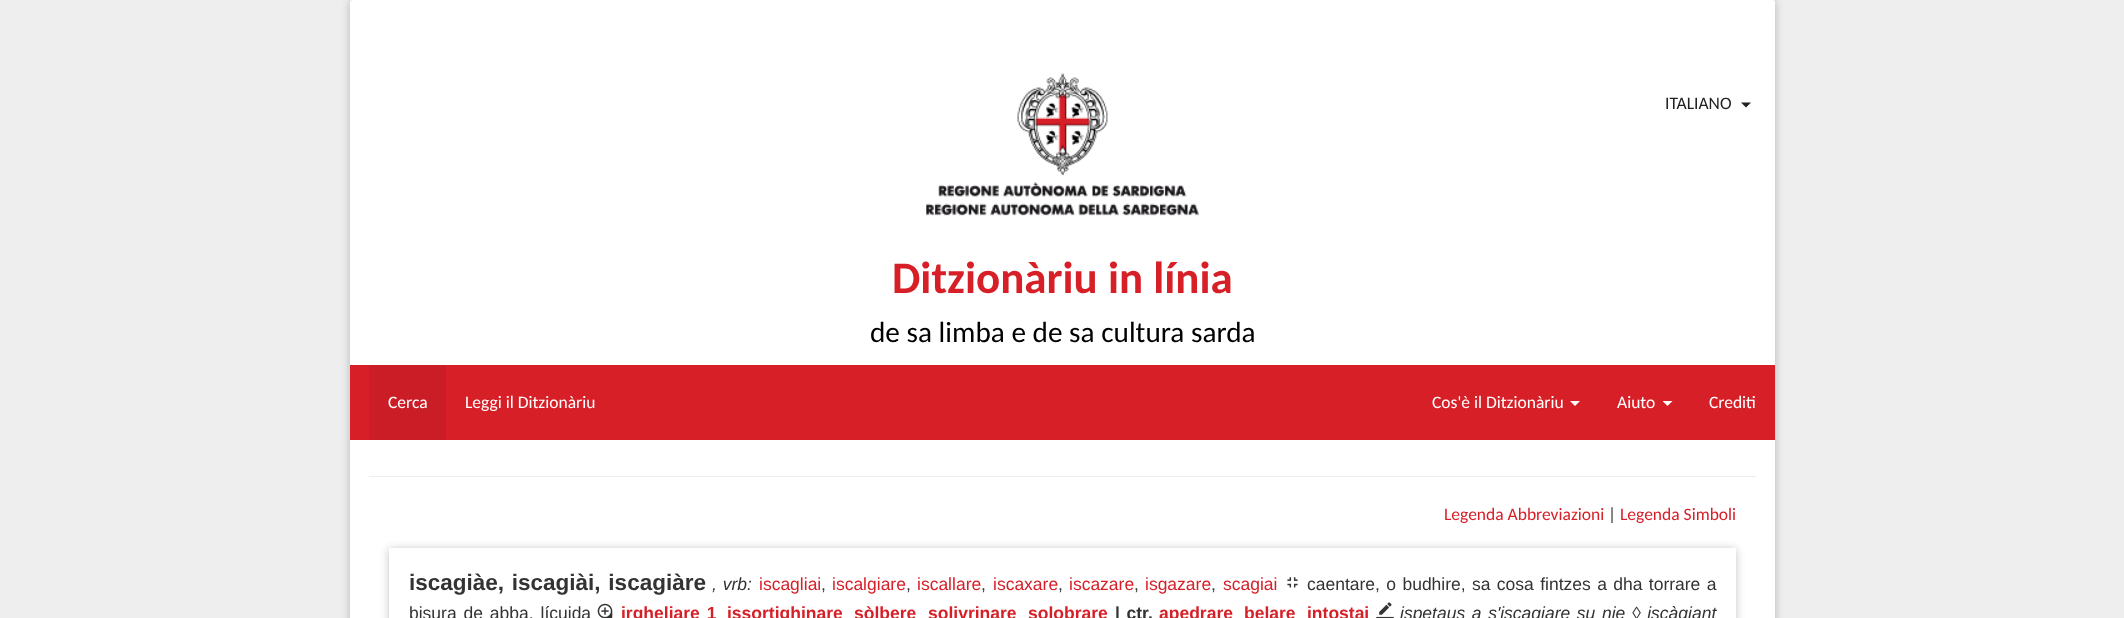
<svg xmlns="http://www.w3.org/2000/svg" xmlns:xlink="http://www.w3.org/1999/xlink" width="2124" height="618" viewBox="0 0 2124 618">
<style>
.cls-1{font:17.5px Carlito;fill:#212121}
.cls-2{font:bold 45px Carlito;fill:#d61f27}
.cls-3{font:29.25px Carlito;fill:#000000}
.cls-4{font:17.5px Carlito;fill:#ffffff}
.cls-5{font:17.5px Carlito;fill:#d61f27}
.cls-6{font:17.5px Carlito;fill:#333333}
.cls-7{font:bold 22.5px Liberation Sans;fill:#333333}
.cls-8{font:italic 17.5px Liberation Sans;fill:#333333}
.cls-9{font:17.5px Liberation Sans;fill:#d61f27}
.cls-10{font:17.5px Liberation Sans;fill:#333333}
.cls-11{font:bold 17.5px Liberation Sans;fill:#d61f27}
.cls-12{font:bold 17.5px Liberation Sans;fill:#333333}
</style>
<defs>
<clipPath id="clip1"><path d="M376 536H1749V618H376ZM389 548H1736V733H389Z" clip-rule="evenodd"/></clipPath>
</defs>
<rect width="100%" height="100%" fill="#eeeeee"/>
<rect fill="#000000" fill-opacity="0.12" filter="blur(4px)" x="350" y="1" width="1425" height="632" rx="2.5"/>
<rect fill="#000000" fill-opacity="0.12" filter="blur(4px)" x="350" y="1" width="1425" height="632" rx="2.5"/>
<rect fill="#ffffff" x="350" y="0" width="1425" height="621" rx="2.5"/>
<rect fill="#eeeeee" x="369" y="476" width="1387" height="1"/>
<path fill="#212121" d="M1741 102.5H1751L1746 107.5Z"/>
<image xlink:href="image0.png" x="926" y="73" width="273" height="143"/>
<rect fill="#d61f27" x="350" y="365" width="1425" height="75"/>
<rect fill="#cb1d25" x="369" y="365" width="77" height="75"/>
<path fill="#ffffff" d="M1570 401H1580L1575 406Z"/>
<path fill="#ffffff" d="M1662.5 401H1672.5L1667.5 406Z"/>
<g clip-path="url(#clip1)">
<rect fill="#000000" fill-opacity="0.12" filter="blur(4px)" x="389" y="549" width="1347" height="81"/>
<rect fill="#000000" fill-opacity="0.12" filter="blur(4px)" x="389" y="549" width="1347" height="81"/>
</g>
<image xlink:href="image1.png" x="1287" y="577" width="11" height="11"/>
<image xlink:href="image2.png" x="597" y="603" width="16" height="15"/>
<image xlink:href="image3.png" x="1376" y="602" width="18" height="16"/>
<text class="cls-1" x="1665" y="109">ITALIANO</text>
<text class="cls-2" x="892" y="293">Ditzionàriu in línia</text>
<text class="cls-3" x="870" y="342">de sa limba e de sa cultura sarda</text>
<text class="cls-4" x="388" y="408">Cerca</text>
<text class="cls-4" x="465" y="408">Leggi il Ditzionàriu</text>
<text class="cls-4" x="1432" y="408">Cos'è il Ditzionàriu</text>
<text class="cls-4" x="1617" y="408">Aiuto</text>
<text class="cls-4" x="1709" y="408">Crediti</text>
<text class="cls-5" x="1444" y="520">Legenda Abbreviazioni</text>
<text class="cls-6" x="1608" y="520">|</text>
<text class="cls-5" x="1620" y="520">Legenda Simboli</text>
<text class="cls-7" x="409" y="590" word-spacing="1.5">iscagiàe, iscagiài, iscagiàre</text>
<text class="cls-8" x="712" y="590" word-spacing="1">, vrb</text>
<text class="cls-8" x="747" y="590">:</text>
<text class="cls-9" x="759" y="590">iscagliai</text>
<text class="cls-9" x="832" y="590">iscalgiare</text>
<text class="cls-9" x="917" y="590">iscallare</text>
<text class="cls-9" x="993" y="590">iscaxare</text>
<text class="cls-9" x="1069" y="590">iscazare</text>
<text class="cls-9" x="1145" y="590">isgazare</text>
<text class="cls-9" x="1223" y="590">scagiai</text>
<text class="cls-10" x="1307" y="590" word-spacing="1.5">caentare, o budhire, sa cosa fintzes a dha torrare a</text>
<text class="cls-10" x="821" y="590">,</text>
<text class="cls-10" x="906" y="590">,</text>
<text class="cls-10" x="981" y="590">,</text>
<text class="cls-10" x="1058" y="590">,</text>
<text class="cls-10" x="1134" y="590">,</text>
<text class="cls-10" x="1211" y="590">,</text>
<text class="cls-10" x="409" y="619" word-spacing="2">bisura de abba, lícuida</text>
<text class="cls-11" x="621" y="619" word-spacing="2">irgheliare 1</text>
<text class="cls-11" x="727" y="619">issortighinare</text>
<text class="cls-11" x="854" y="619">sòlbere</text>
<text class="cls-11" x="928" y="619">solivrinare</text>
<text class="cls-11" x="1028" y="619">solobrare</text>
<text class="cls-12" x="1115" y="619" word-spacing="1.75">| ctr.</text>
<text class="cls-11" x="1159" y="619">apedrare</text>
<text class="cls-11" x="1244" y="619">belare</text>
<text class="cls-11" x="1307" y="619">intostai</text>
<text class="cls-8" x="1400" y="619" word-spacing="1.75">ispetaus a s'iscagiare su nie ◊ iscàgiant</text>
</svg>
